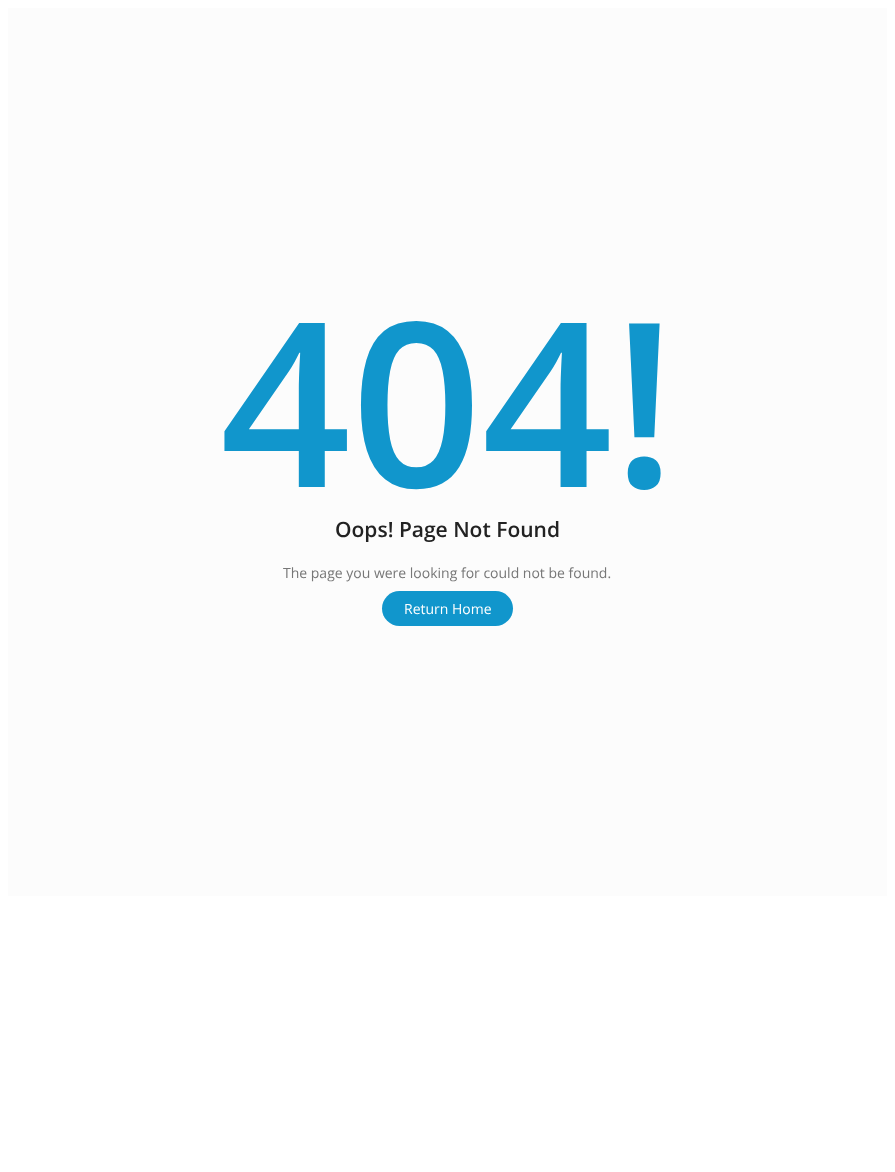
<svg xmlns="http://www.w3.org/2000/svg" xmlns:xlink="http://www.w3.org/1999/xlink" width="895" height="1172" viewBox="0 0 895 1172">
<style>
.cls-1{font:600 229px Open Sans;fill:#1196cc}
.cls-2{font:600 21px Open Sans;fill:#222222}
.cls-3{font:14px Open Sans;fill:#777777}
.cls-4{font:14px Open Sans;fill:#ffffff}
</style>
<rect width="100%" height="100%" fill="#ffffff"/>
<rect fill="#fcfcfc" x="8" y="8" width="879" height="888"/>
<rect fill="#1196cc" x="382" y="591" width="131" height="35" rx="17.5"/>
<text class="cls-1" x="220" y="487">404!</text>
<text class="cls-2" x="335" y="537">Oops! Page Not Found</text>
<text class="cls-3" x="283" y="578">The page you were looking for could not be found.</text>
<text class="cls-4" x="404" y="614">Return Home</text>
</svg>
